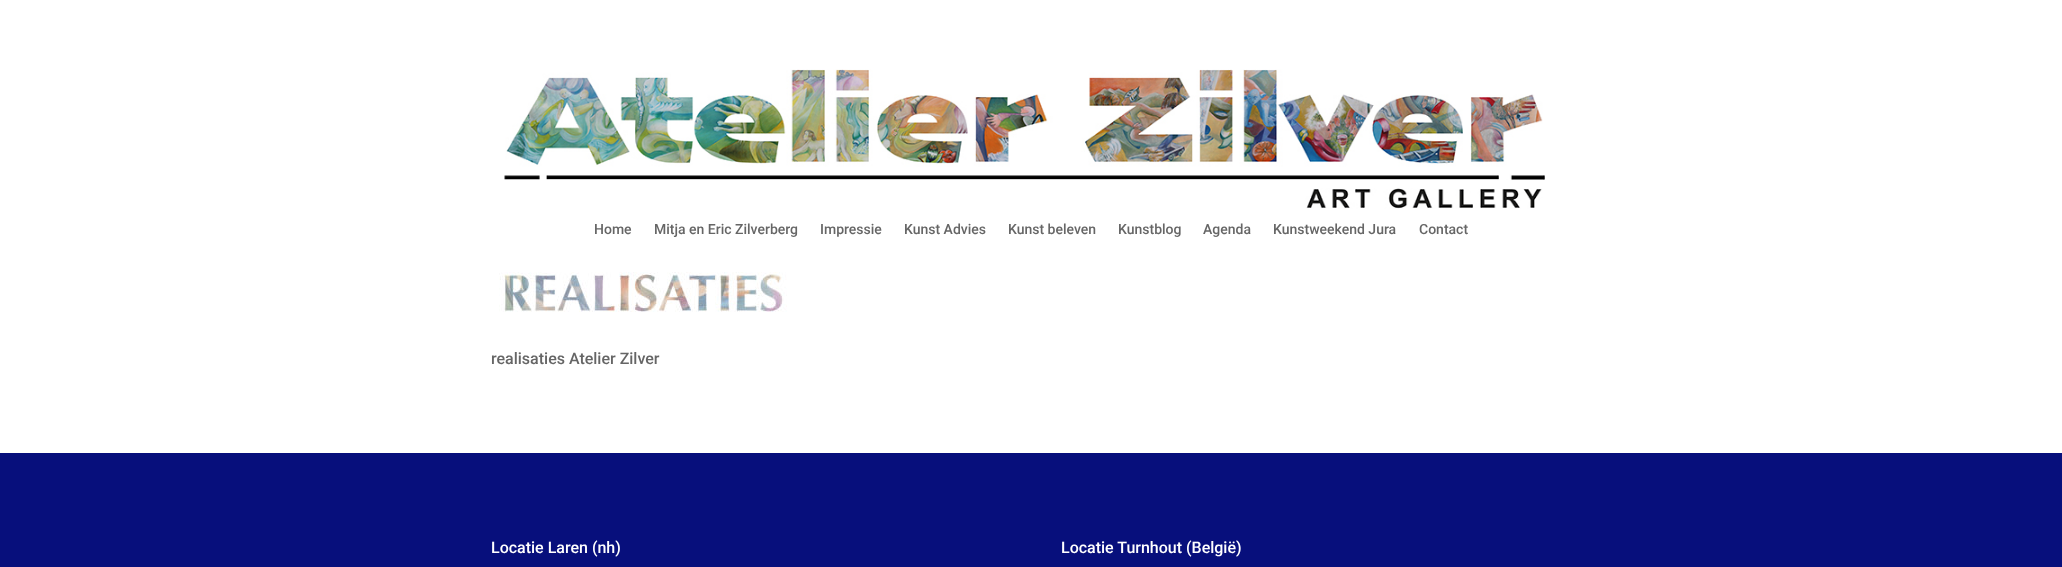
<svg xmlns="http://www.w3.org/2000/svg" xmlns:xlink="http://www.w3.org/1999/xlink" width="2062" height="567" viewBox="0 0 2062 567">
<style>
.cls-1{font:500 14px Roboto;fill:#666666}
.cls-2{font:500 16px Roboto;fill:#666666}
.cls-3{font:500 16px Roboto;fill:#ffffff}
</style>
<rect width="100%" height="100%" fill="#ffffff"/>
<image xlink:href="image0.png" x="504" y="69" width="1041" height="140"/>
<image xlink:href="image1.png" x="499" y="272" width="288" height="40"/>
<rect fill="#070f7c" x="0" y="453" width="2062" height="114"/>
<text class="cls-1" x="594" y="234">Home</text>
<text class="cls-1" x="654" y="234">Mitja en Eric Zilverberg</text>
<text class="cls-1" x="820" y="234">Impressie</text>
<text class="cls-1" x="904" y="234">Kunst Advies</text>
<text class="cls-1" x="1008" y="234">Kunst beleven</text>
<text class="cls-1" x="1118" y="234">Kunstblog</text>
<text class="cls-1" x="1203" y="234">Agenda</text>
<text class="cls-1" x="1273" y="234">Kunstweekend Jura</text>
<text class="cls-1" x="1419" y="234">Contact</text>
<text class="cls-2" x="491" y="364">realisaties Atelier Zilver</text>
<text class="cls-3" x="491" y="553">Locatie Laren (nh)</text>
<text class="cls-3" x="1061" y="553">Locatie Turnhout (België)</text>
</svg>
